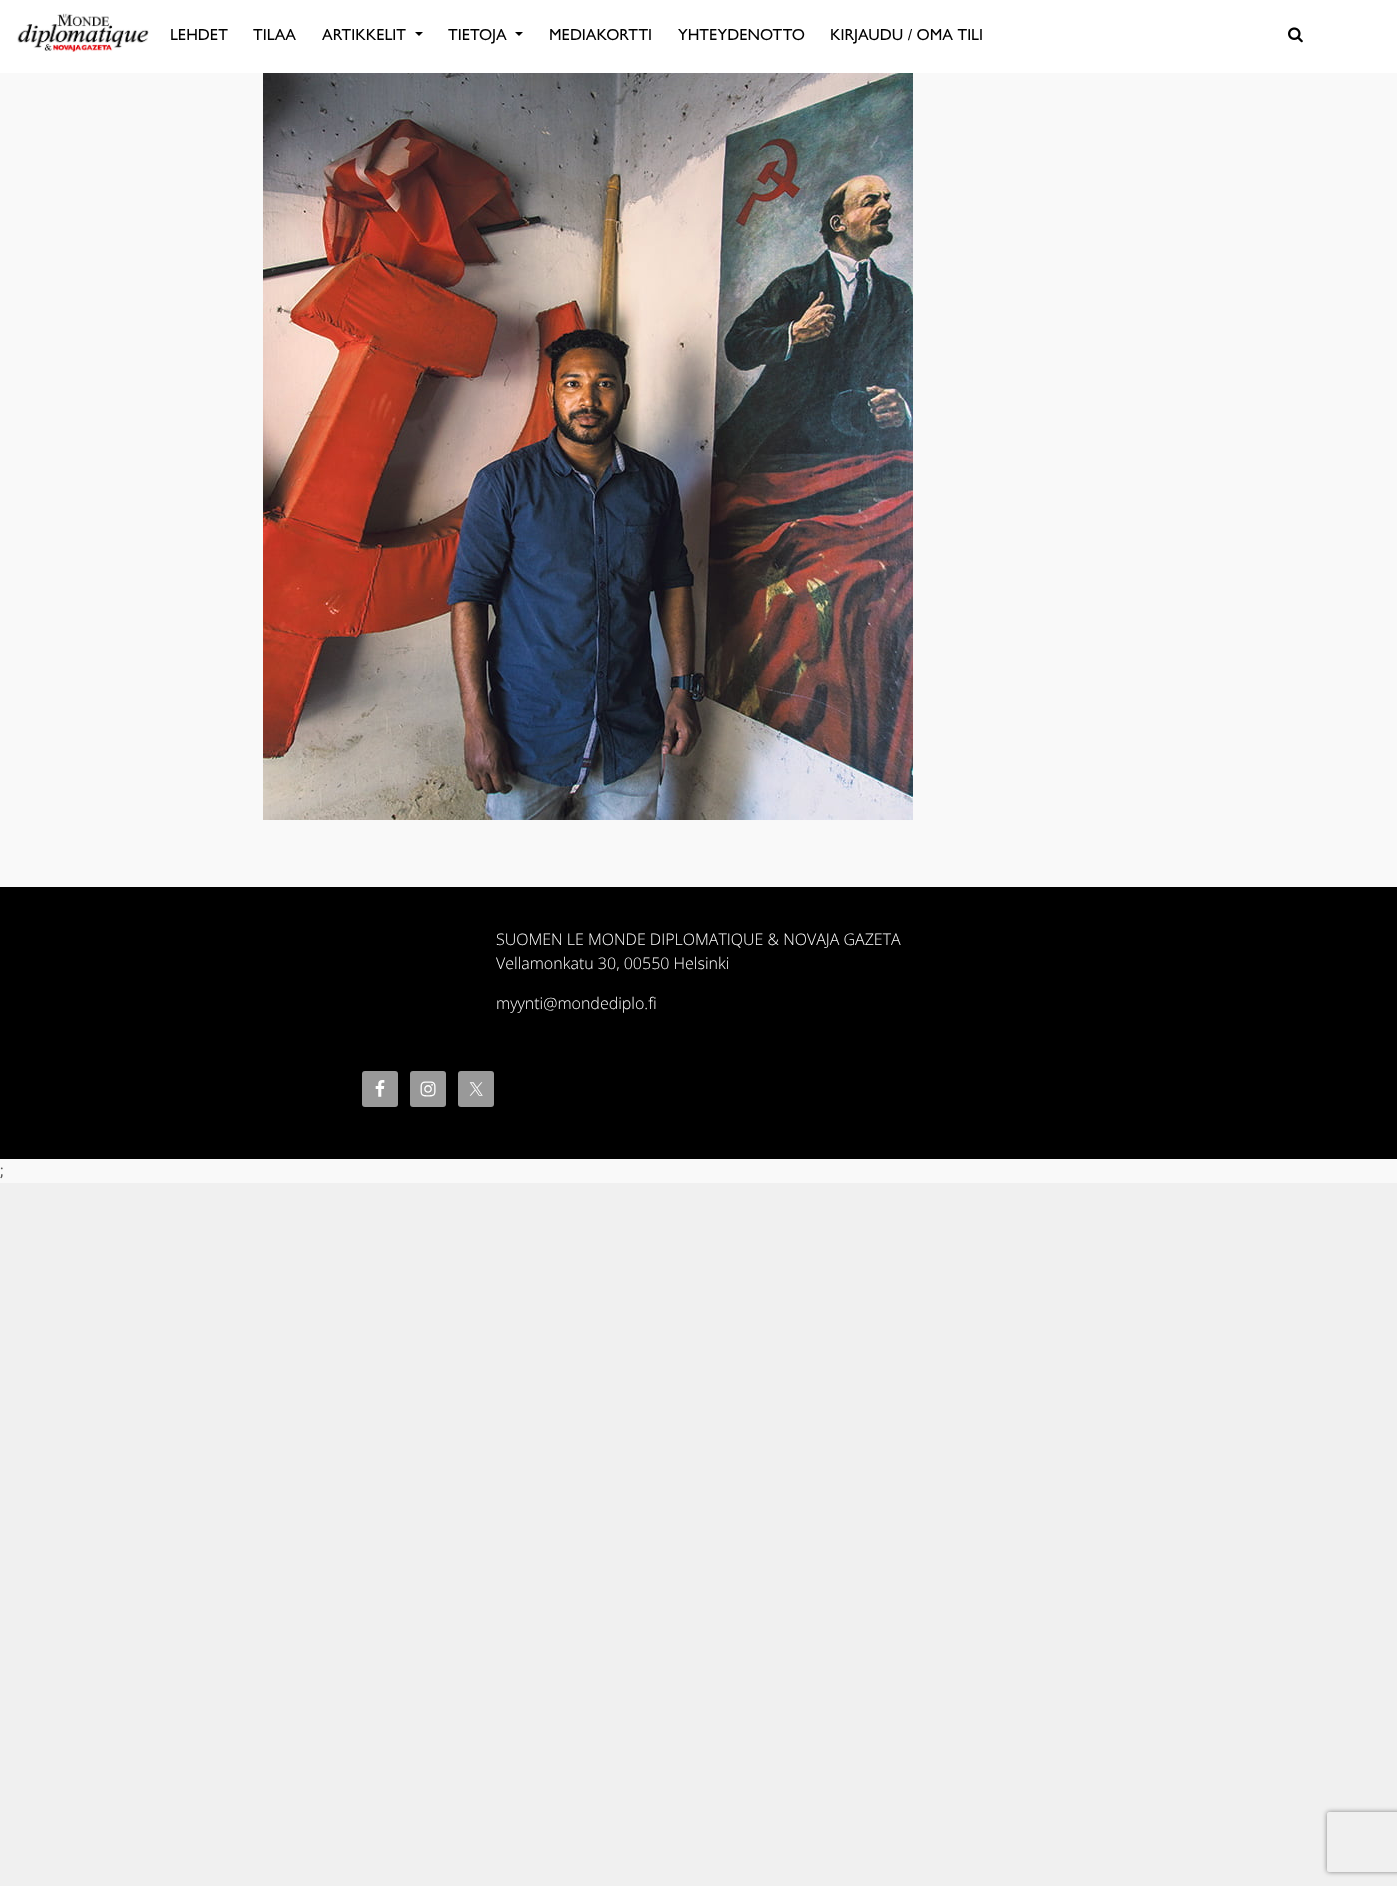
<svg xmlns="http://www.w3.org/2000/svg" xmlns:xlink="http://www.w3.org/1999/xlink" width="1397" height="1886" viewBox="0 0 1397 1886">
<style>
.cls-1{font:500 16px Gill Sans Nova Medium;fill:#000000}
.cls-2{font:300 16px Open Sans;fill:#ffffff}
.cls-3{font:16px Roboto;fill:#555555}
</style>
<defs>
<clipPath id="clip1"><path d="M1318 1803H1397V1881H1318ZM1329 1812H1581C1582 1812 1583 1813 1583 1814V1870C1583 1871 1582 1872 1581 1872H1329C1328 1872 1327 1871 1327 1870V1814C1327 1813 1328 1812 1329 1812Z" clip-rule="evenodd"/></clipPath>
</defs>
<rect width="100%" height="100%" fill="#f0f0f0"/>
<rect fill="#f9f9f9" x="0" y="73" width="1397" height="1110"/>
<rect fill="#ffffff" x="0" y="0" width="1397" height="73"/>
<image xlink:href="image0.png" x="17" y="13" width="132" height="39"/>
<path fill="#000000" d="M415 32H423L419 36Z"/>
<path fill="#000000" d="M515 32H523L519 36Z"/>
<image xlink:href="image1.png" x="1288" y="27" width="15" height="16"/>
<image xlink:href="image2.png" x="263" y="73" width="650" height="747"/>
<rect fill="#000000" x="0" y="887" width="1397" height="272"/>
<rect fill="#999999" x="362" y="1071" width="36" height="36" rx="3"/>
<image xlink:href="image3.png" x="375" y="1080" width="10" height="17"/>
<rect fill="#999999" x="410" y="1071" width="36" height="36" rx="3"/>
<image xlink:href="image4.png" x="420" y="1081" width="16" height="16"/>
<rect fill="#999999" x="458" y="1071" width="36" height="36" rx="3"/>
<image xlink:href="image5.png" x="469" y="1082" width="14" height="14"/>
<g clip-path="url(#clip1)">
<rect fill="#808080" filter="blur(2.5px)" x="1327" y="1812" width="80" height="60" rx="2"/>
</g>
<text class="cls-1" x="170" y="40">LEHDET</text>
<text class="cls-1" x="253" y="40">TILAA</text>
<text class="cls-1" x="322" y="40">ARTIKKELIT</text>
<text class="cls-1" x="448" y="40">TIETOJA</text>
<text class="cls-1" x="549" y="40">MEDIAKORTTI</text>
<text class="cls-1" x="678" y="40">YHTEYDENOTTO</text>
<text class="cls-1" x="830" y="40">KIRJAUDU / OMA TILI</text>
<text class="cls-2"><tspan x="496" y="945">SUOMEN LE MONDE DIPLOMATIQUE &amp; NOVAJA GAZETA</tspan><tspan x="496" y="969">Vellamonkatu 30, 00550 Helsinki</tspan></text>
<text class="cls-2" x="496" y="1009">myynti@mondediplo.fi</text>
<text class="cls-3" x="0" y="1176">;</text>
</svg>
